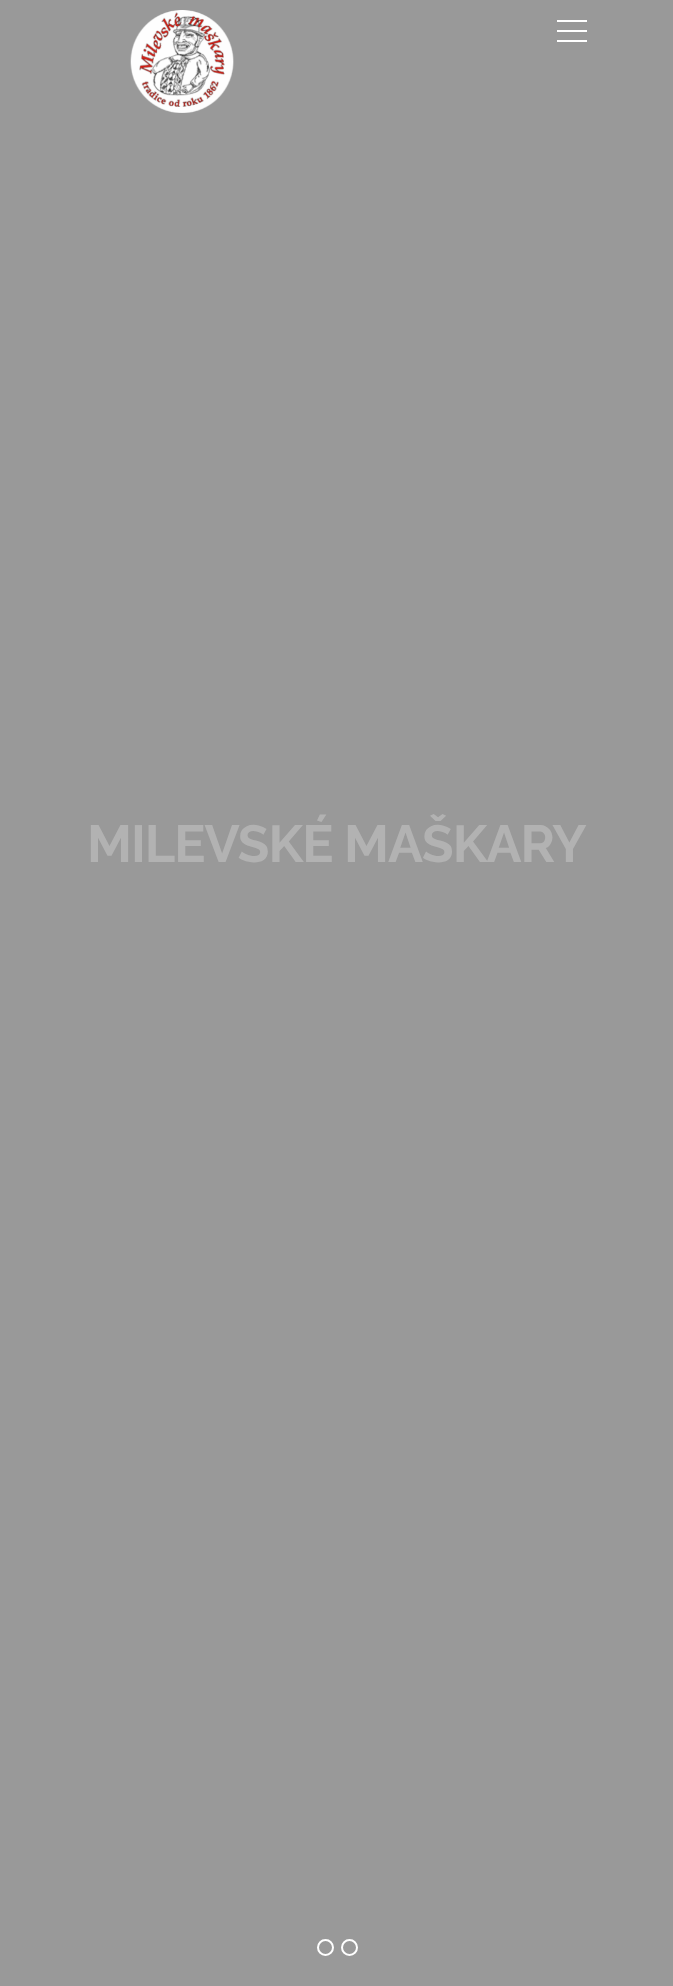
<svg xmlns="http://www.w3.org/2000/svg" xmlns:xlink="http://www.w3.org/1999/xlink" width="673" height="1986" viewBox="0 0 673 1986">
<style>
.cls-1{font:bold 52px Raleway;letter-spacing:-1px;fill:#b2b2b2}
</style>
<rect width="100%" height="100%" fill="#999999"/>
<image xlink:href="image0.png" x="130" y="10" width="104" height="103"/>
<rect fill="#ffffff" x="557" y="30" width="30" height="2"/>
<rect fill="#ffffff" x="557" y="20" width="30" height="2"/>
<rect fill="#ffffff" x="557" y="40" width="30" height="2"/>
<circle fill="none" stroke="#ffffff" stroke-width="2" cx="325.5" cy="1947.5" r="7.5"/>
<circle fill="none" stroke="#ffffff" stroke-width="2" cx="349.5" cy="1947.5" r="7.5"/>
<text class="cls-1" x="87" y="862">MILEVSKÉ MAŠKARY</text>
</svg>
